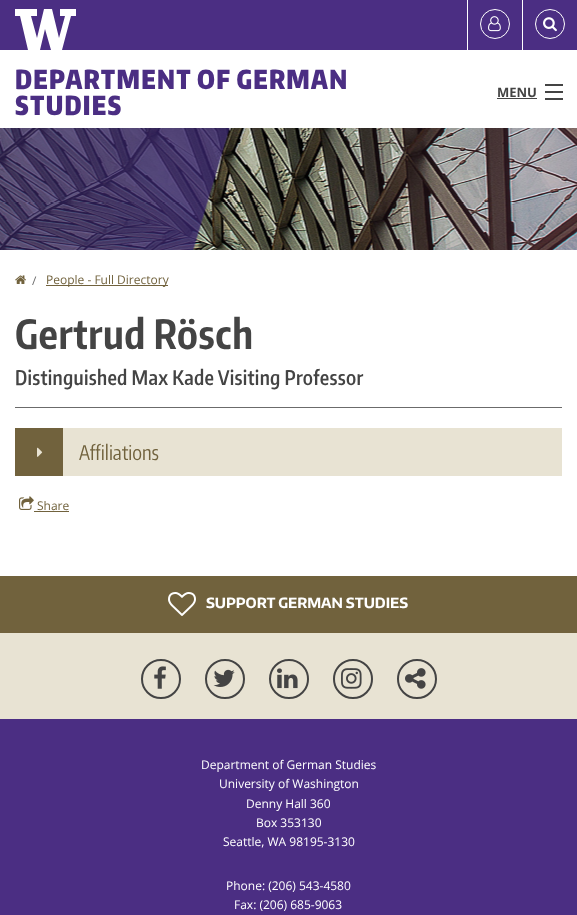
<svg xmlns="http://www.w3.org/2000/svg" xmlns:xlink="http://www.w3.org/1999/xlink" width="577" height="915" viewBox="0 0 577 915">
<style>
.cls-1{font:900 26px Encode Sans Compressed;letter-spacing:1.3px;fill:#4b2e83}
.cls-2{font:bold 13px Open Sans;fill:#444444}
.cls-3{font:12px Open Sans;fill:#6b6b6b}
.cls-4{font:12px Open Sans;fill:#71623d}
.cls-5{font:bold 40px Encode Sans Compressed;letter-spacing:0.5px;fill:#444444}
.cls-6{font:600 20px Encode Sans Compressed;letter-spacing:0.3px;fill:#444444}
.cls-7{font:20px Encode Sans Compressed;fill:#71623d}
.cls-8{font:bold 14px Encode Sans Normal;fill:#ffffff}
.cls-9{font:12px Open Sans;fill:#ffffff}
</style>
<rect width="100%" height="100%" fill="#ffffff"/>
<rect fill="#4b2e83" x="0" y="0" width="577" height="50"/>
<path fill="#ffffff" d="M60 9V16H65L59 38L52 9H44L37 38L31 16H37V9H15V16H20L28 50H40L45 29L51 50H62L71 16H76V9Z"/>
<rect fill="#ffffff" x="467" y="0" width="1" height="50"/>
<circle fill="none" stroke="#ffffff" cx="495" cy="24" r="14.5"/>
<image xlink:href="image0.png" x="488" y="16" width="13" height="16"/>
<rect fill="#ffffff" x="522" y="0" width="1" height="50"/>
<circle fill="none" stroke="#ffffff" cx="550" cy="24" r="14.5"/>
<image xlink:href="image1.png" x="543" y="17" width="14" height="15"/>
<rect fill="#444444" x="497" y="98" width="40" height="1"/>
<rect fill="#444444" x="545" y="98" width="18" height="2"/>
<rect fill="#444444" x="545" y="91" width="18" height="2"/>
<rect fill="#444444" x="545" y="84" width="18" height="2"/>
<image xlink:href="image2.png" x="0" y="128" width="577" height="122"/>
<image xlink:href="image3.png" x="15" y="275" width="11" height="9"/>
<rect fill="#71623d" x="46" y="285" width="122" height="1"/>
<rect fill="#6b6b6b" x="15" y="407" width="547" height="1"/>
<rect fill="#e8e3d3" x="63" y="428" width="499" height="48"/>
<rect fill="#71623d" x="15" y="428" width="48" height="48"/>
<image xlink:href="image4.png" x="37" y="447" width="6" height="10"/>
<image xlink:href="image5.png" x="19" y="496" width="15" height="14"/>
<rect fill="#71623d" x="34" y="511" width="35" height="1"/>
<rect fill="#e8e3d3" x="0" y="633" width="577" height="86"/>
<rect fill="#71623d" x="0" y="576" width="577" height="57"/>
<image xlink:href="image6.png" x="168" y="592" width="28" height="24"/>
<circle fill="none" stroke="#444444" stroke-width="2" cx="161" cy="679" r="19"/>
<image xlink:href="image7.png" x="154" y="666" width="12" height="23"/>
<circle fill="none" stroke="#444444" stroke-width="2" cx="225" cy="679" r="19"/>
<image xlink:href="image8.png" x="213" y="669" width="22" height="18"/>
<circle fill="none" stroke="#444444" stroke-width="2" cx="289" cy="679" r="19"/>
<image xlink:href="image9.png" x="277" y="668" width="21" height="21"/>
<circle fill="none" stroke="#444444" stroke-width="2" cx="353" cy="679" r="19"/>
<image xlink:href="image10.png" x="341" y="668" width="21" height="21"/>
<circle fill="none" stroke="#444444" stroke-width="2" cx="417" cy="679" r="19"/>
<image xlink:href="image11.png" x="405" y="668" width="21" height="21"/>
<rect fill="#4b2e83" x="0" y="719" width="577" height="196"/>
<text class="cls-1"><tspan x="15" y="89">DEPARTMENT OF GERMAN</tspan><tspan x="15" y="115">STUDIES</tspan></text>
<text class="cls-2" x="497" y="97">MENU</text>
<text class="cls-3" x="32" y="285">/</text>
<text class="cls-4" x="46" y="284">People - Full Directory</text>
<text class="cls-5" x="15" y="349">Gertrud Rösch</text>
<text class="cls-6" x="15" y="385">Distinguished Max Kade Visiting Professor</text>
<text class="cls-7" x="79" y="460">Affiliations</text>
<text class="cls-4" x="37" y="510">Share</text>
<text class="cls-8" x="206" y="608">SUPPORT GERMAN STUDIES</text>
<text class="cls-9" x="201" y="769">Department of German Studies</text>
<text class="cls-9" x="219" y="788">University of Washington</text>
<text class="cls-9" x="246" y="808">Denny Hall 360</text>
<text class="cls-9" x="256" y="827">Box 353130</text>
<text class="cls-9" x="223" y="846">Seattle, WA 98195-3130</text>
<text class="cls-9" x="226" y="890">Phone: (206) 543-4580</text>
<text class="cls-9" x="234" y="909">Fax: (206) 685-9063</text>
</svg>
